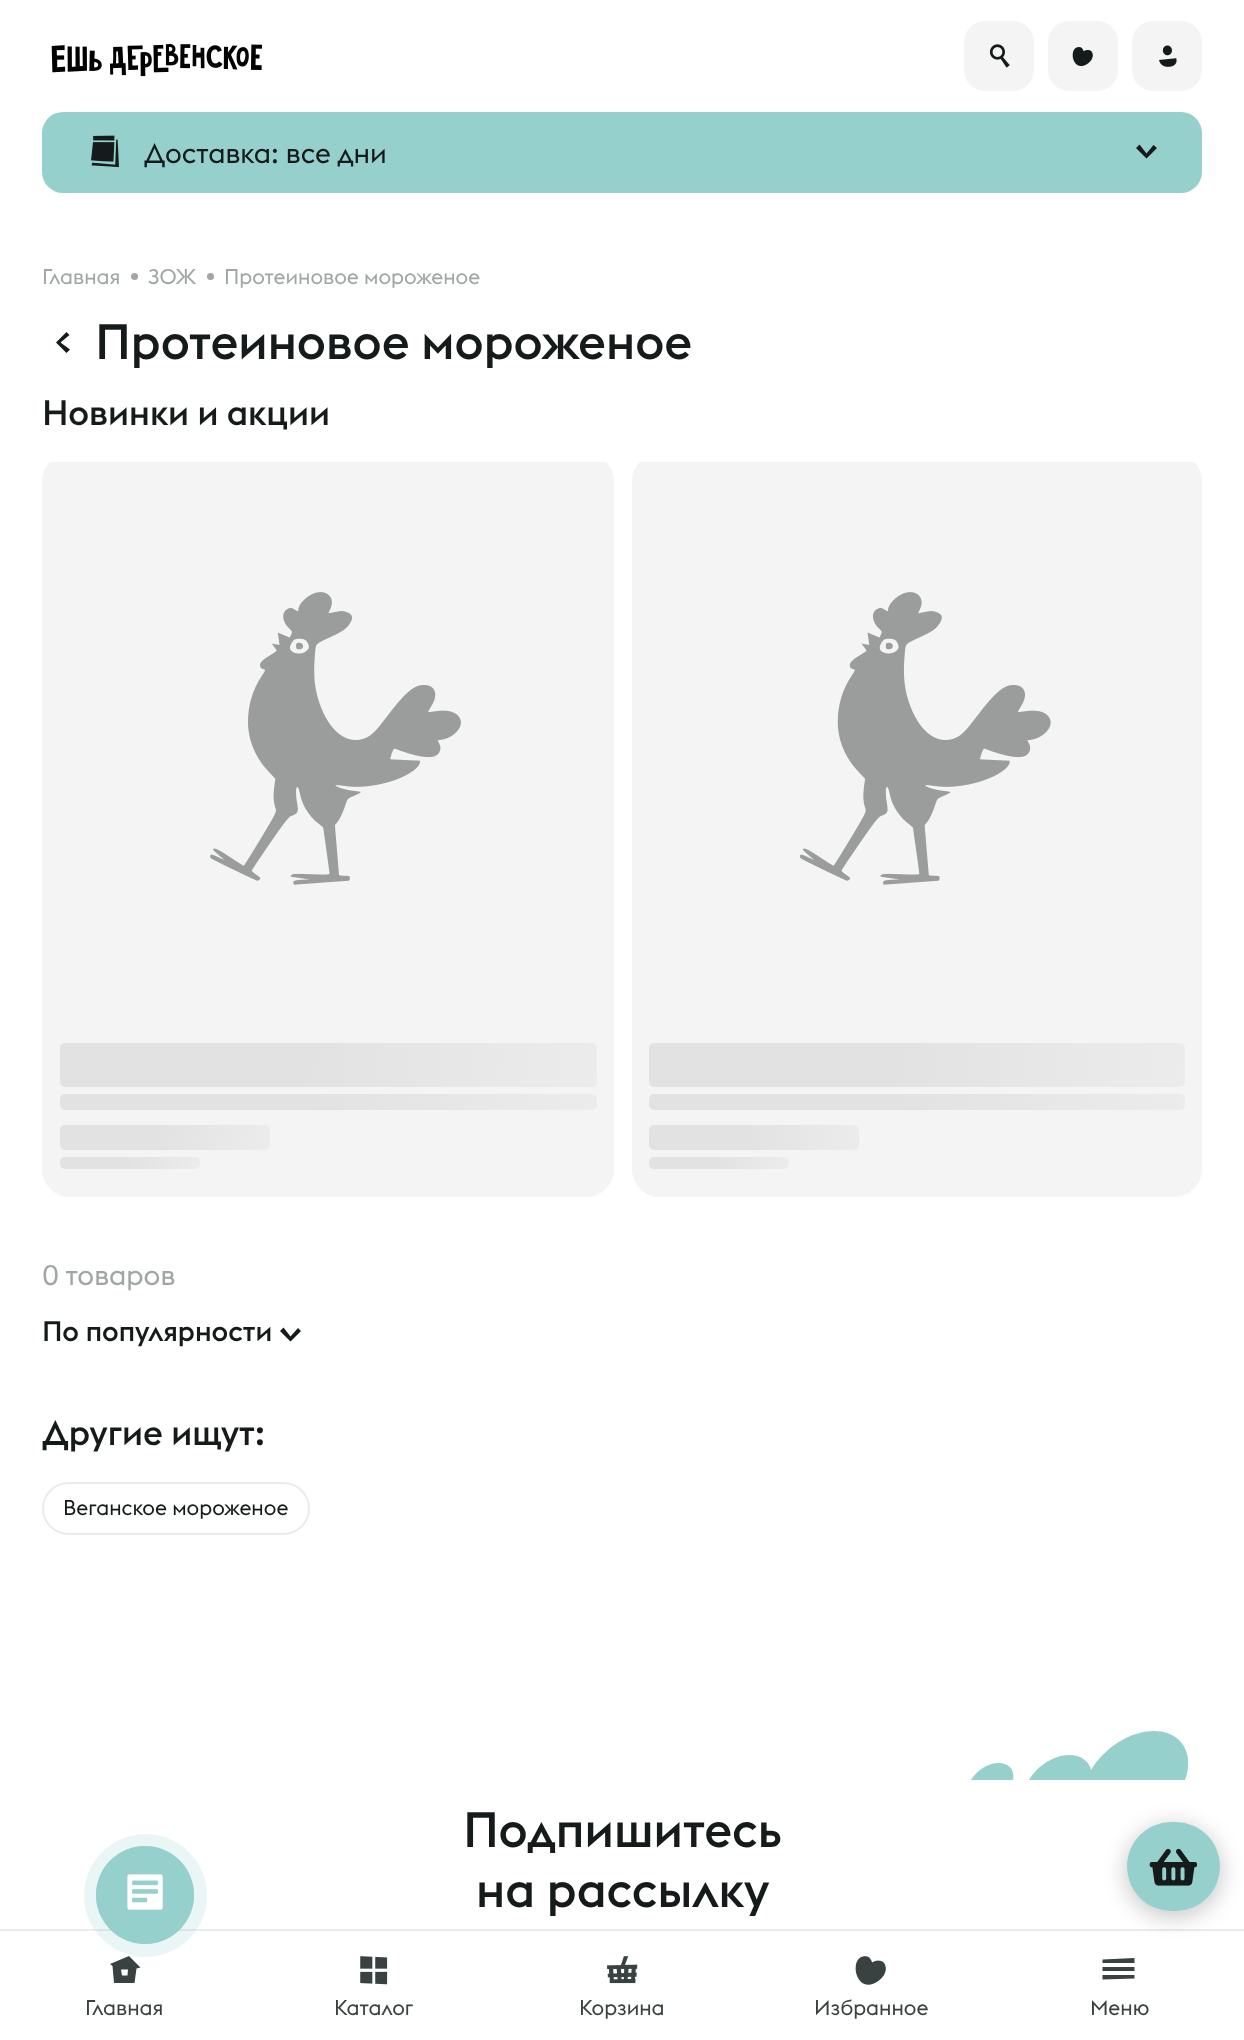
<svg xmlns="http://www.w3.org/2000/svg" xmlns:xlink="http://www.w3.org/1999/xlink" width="1244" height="2040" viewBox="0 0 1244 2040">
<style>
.cls-1{font:28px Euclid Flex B;fill:#151b1a}
.cls-2{font:21px Euclid Flex B;fill:#a0a6a6}
.cls-3{font:500 49px Euclid Flex B;fill:#151b1a}
.cls-4{font:500 35px Euclid Flex B;fill:#151b1a}
.cls-5{font:28px Euclid Flex B;fill:#a0a6a6}
.cls-6{font:500 28px Euclid Flex B;fill:#151b1a}
.cls-7{font:21px Euclid Flex B;fill:#151b1a}
.cls-8{font:21px Euclid Flex B;fill:#394141}
</style>
<defs>
<clipPath id="clip1"><rect x="42" y="453" width="572" height="744" rx="28"/></clipPath>
<linearGradient id="g1" gradientUnits="userSpaceOnUse" x1="59" y1="1045" x2="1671" y2="1172"><stop offset="0.15" stop-color="#e2e2e2"/><stop offset="0.49" stop-color="#f4f4f4"/><stop offset="0.88" stop-color="#e2e2e2"/></linearGradient>
<linearGradient id="g2" gradientUnits="userSpaceOnUse" x1="63" y1="1054" x2="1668" y2="1180"><stop offset="0.15" stop-color="#e2e2e2"/><stop offset="0.49" stop-color="#f4f4f4"/><stop offset="0.88" stop-color="#e2e2e2"/></linearGradient>
<linearGradient id="g3" gradientUnits="userSpaceOnUse" x1="59" y1="1137" x2="690" y2="1187"><stop offset="0.15" stop-color="#e2e2e2"/><stop offset="0.49" stop-color="#f4f4f4"/><stop offset="0.88" stop-color="#e2e2e2"/></linearGradient>
<linearGradient id="g4" gradientUnits="userSpaceOnUse" x1="59" y1="1159" x2="480" y2="1192"><stop offset="0.15" stop-color="#e2e2e2"/><stop offset="0.49" stop-color="#f4f4f4"/><stop offset="0.88" stop-color="#e2e2e2"/></linearGradient>
<clipPath id="clip2"><rect x="632" y="453" width="570" height="744" rx="28"/></clipPath>
<linearGradient id="g5" gradientUnits="userSpaceOnUse" x1="649" y1="1046" x2="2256" y2="1172"><stop offset="0.15" stop-color="#e2e2e2"/><stop offset="0.49" stop-color="#f4f4f4"/><stop offset="0.88" stop-color="#e2e2e2"/></linearGradient>
<linearGradient id="g6" gradientUnits="userSpaceOnUse" x1="652" y1="1055" x2="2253" y2="1180"><stop offset="0.15" stop-color="#e2e2e2"/><stop offset="0.49" stop-color="#f4f4f4"/><stop offset="0.88" stop-color="#e2e2e2"/></linearGradient>
<linearGradient id="g7" gradientUnits="userSpaceOnUse" x1="648" y1="1137" x2="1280" y2="1187"><stop offset="0.15" stop-color="#e2e2e2"/><stop offset="0.49" stop-color="#f4f4f4"/><stop offset="0.88" stop-color="#e2e2e2"/></linearGradient>
<linearGradient id="g8" gradientUnits="userSpaceOnUse" x1="649" y1="1159" x2="1069" y2="1192"><stop offset="0.15" stop-color="#e2e2e2"/><stop offset="0.49" stop-color="#f4f4f4"/><stop offset="0.88" stop-color="#e2e2e2"/></linearGradient>
<clipPath id="clip3"><rect x="971" y="1731" width="217" height="49"/></clipPath>
</defs>
<rect width="100%" height="100%" fill="#ffffff"/>
<image xlink:href="image0.png" x="51" y="44" width="212" height="33"/>
<rect fill="#f4f4f4" stroke="#f4f4f4" stroke-width="4" x="966" y="23" width="66" height="66" rx="19"/>
<image xlink:href="image1.png" x="989" y="44" width="21" height="24"/>
<rect fill="#f4f4f4" stroke="#f4f4f4" stroke-width="4" x="1050" y="23" width="66" height="66" rx="19"/>
<image xlink:href="image2.png" x="1072" y="47" width="21" height="20"/>
<rect fill="#f4f4f4" stroke="#f4f4f4" stroke-width="4" x="1134" y="23" width="66" height="66" rx="19"/>
<image xlink:href="image3.png" x="1159" y="45" width="18" height="22"/>
<rect fill="#96d0cd" x="42" y="112" width="1160" height="81" rx="21"/>
<image xlink:href="image4.png" x="91" y="135" width="28" height="33"/>
<path fill="#151b1a" d="M1157 148L1153.5 145L1146.5 153.5L1139.5 144.5L1136 148L1146.5 158.5Z"/>
<circle fill="#a0a6a6" cx="134.5" cy="276.5" r="3.5"/>
<circle fill="#a0a6a6" cx="210.5" cy="276.5" r="3.5"/>
<path fill="#151b1a" d="M66.5 332L69.5 335L60.5 342.5L70 349.5L66.5 353L56 342.5Z"/>
<g clip-path="url(#clip1)">
<rect fill="#f4f4f4" x="42" y="462" width="572" height="564"/>
</g>
<image xlink:href="image5.png" x="210" y="592" width="251" height="293"/>
<path fill="#f4f4f4" d="M42 1026H614V1169C614 1184.5 601.5 1197 586 1197H70C54.5 1197 42 1184.5 42 1169Z"/>
<rect fill="url(#g1)" x="60" y="1043" width="537" height="44" rx="5"/>
<rect fill="url(#g2)" x="60" y="1094" width="537" height="16" rx="5"/>
<rect fill="url(#g3)" x="60" y="1125" width="210" height="25" rx="5"/>
<rect fill="url(#g4)" x="60" y="1157" width="140" height="12" rx="5"/>
<g clip-path="url(#clip2)">
<rect fill="#f4f4f4" x="632" y="462" width="570" height="564"/>
</g>
<image xlink:href="image6.png" x="799" y="592" width="252" height="293"/>
<path fill="#f4f4f4" d="M632 1026H1202V1169C1202 1184.5 1189.5 1197 1174 1197H660C644.5 1197 632 1184.5 632 1169Z"/>
<rect fill="url(#g5)" x="649" y="1043" width="536" height="44" rx="5"/>
<rect fill="url(#g6)" x="649" y="1094" width="536" height="16" rx="5"/>
<rect fill="url(#g7)" x="649" y="1125" width="210" height="25" rx="5"/>
<rect fill="url(#g8)" x="649" y="1157" width="140" height="12" rx="5"/>
<path fill="#151b1a" d="M301 1331L298 1328L290.5 1336.5L283.5 1327.5L280 1331L290.5 1341.5Z"/>
<rect fill="none" stroke="#ebebeb" stroke-width="2" x="43" y="1483" width="266" height="51" rx="25.5"/>
<g clip-path="url(#clip3)">
<path fill="#96d0cd" fill-rule="evenodd" d="M1154 1731C1130 1731 1104 1748 1091 1770C1089 1761 1081 1755 1069 1755C1054 1755 1037 1766 1029 1780H1185C1195 1753 1181 1731 1154 1731ZM999 1763C1009 1763 1015 1770 1013 1780H971C977 1770 988 1763 999 1763Z"/>
</g>
<rect fill="#ebebeb" x="0" y="1929" width="1244" height="2"/>
<rect fill="#000000" fill-opacity="0.2" filter="blur(10.5px)" x="1125" y="1825" width="97" height="93" rx="46.5"/>
<rect fill="#96d0cd" x="1127" y="1822" width="93" height="89" rx="44.5"/>
<image xlink:href="image7.png" x="1149" y="1848" width="48" height="38"/>
<path fill="#394141" d="M129 1956L110 1964L112.5 1966L114 1983H134.5L136.5 1968.5L140.5 1967.5ZM127.5 1975.5H122L121 1969.5H128Z"/>
<circle fill="#96d0cd" fill-opacity="0.2" cx="145.5" cy="1895.5" r="61.5"/>
<circle fill="none" stroke="#96d0cd" cx="145" cy="1895" r="48.5"/>
<circle fill="#96d0cd" cx="145" cy="1895" r="49"/>
<image xlink:href="image8.png" x="127" y="1874" width="36" height="36"/>
<image xlink:href="image9.png" x="360" y="1956" width="28" height="29"/>
<image xlink:href="image10.png" x="607" y="1956" width="31" height="28"/>
<image xlink:href="image11.png" x="855" y="1956" width="31" height="29"/>
<path fill="#394141" d="M1134.5 1975H1102.5V1979.5L1134.5 1978.5ZM1134.5 1967H1102.5V1971H1134.5ZM1134.5 1958L1102.5 1959.5V1963H1134.5Z"/>
<text class="cls-1" x="144" y="163">Доставка: все дни</text>
<text class="cls-2" x="42" y="284">Главная</text>
<text class="cls-2" x="148" y="284">ЗОЖ</text>
<text class="cls-2" x="224" y="284">Протеиновое мороженое</text>
<text class="cls-3" x="95" y="359">Протеиновое мороженое</text>
<text class="cls-4" x="42" y="425">Новинки и акции</text>
<text class="cls-5" x="42" y="1285">0 товаров</text>
<text class="cls-6" x="42" y="1341">По популярности</text>
<text class="cls-4" x="42" y="1445">Другие ищут:</text>
<text class="cls-7" x="63" y="1515">Веганское мороженое</text>
<text class="cls-3" x="463" y="1847">Подпишитесь</text>
<text class="cls-3" x="476" y="1907">на рассылку</text>
<text class="cls-8" x="85" y="2015">Главная</text>
<text class="cls-8" x="334" y="2015">Каталог</text>
<text class="cls-8" x="579" y="2015">Корзина</text>
<text class="cls-8" x="814" y="2015">Избранное</text>
<text class="cls-8" x="1090" y="2015">Меню</text>
</svg>
